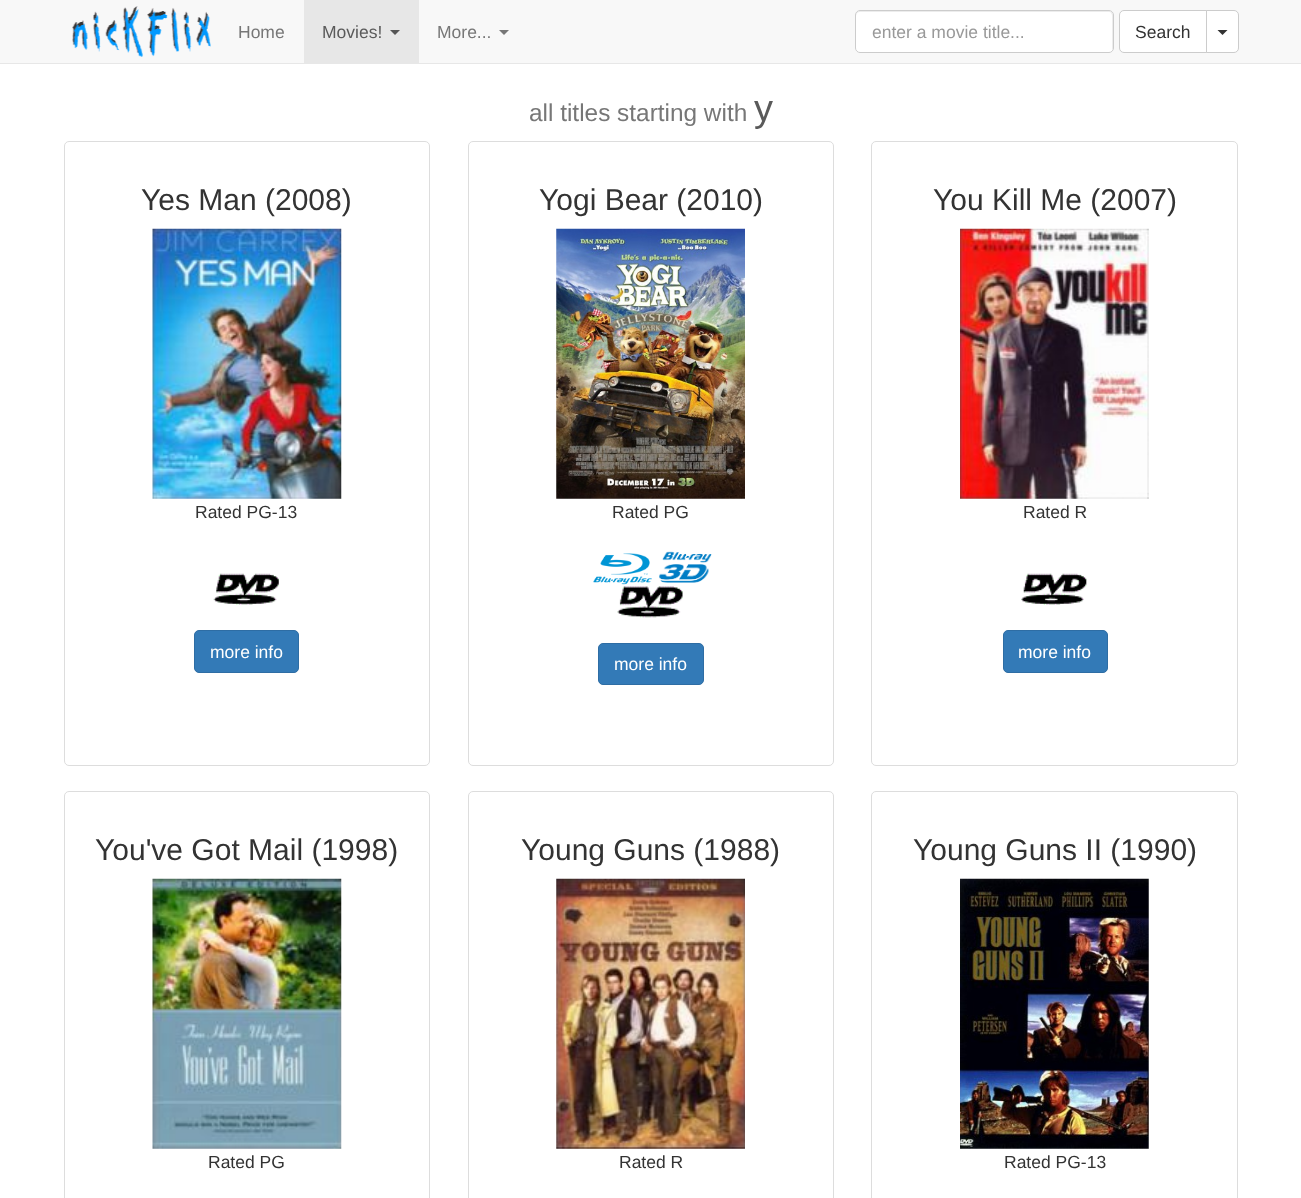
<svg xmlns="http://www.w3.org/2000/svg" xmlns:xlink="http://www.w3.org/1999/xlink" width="1301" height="1198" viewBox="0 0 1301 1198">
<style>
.cls-1{font:17.5px Liberation Sans;fill:#777777}
.cls-2{font:17.5px Liberation Sans;fill:#5a5a5a}
.cls-3{font:17.5px Liberation Sans;fill:#999999}
.cls-4{font:17.5px Liberation Sans;fill:#333333}
.cls-5{font:24.4px Liberation Sans;fill:#777777}
.cls-6{font:38px Liberation Sans;fill:#5a5a5a}
.cls-7{font:30px Liberation Sans;fill:#333333}
.cls-8{font:17.5px Liberation Sans;fill:#ffffff}
</style>
<rect width="100%" height="100%" fill="#ffffff"/>
<rect fill="#f8f8f8" x="0" y="0" width="1301" height="63"/>
<rect fill="#e7e7e7" x="0" y="63" width="1301" height="1"/>
<image xlink:href="image0.png" x="72" y="6" width="139" height="51"/>
<rect fill="#e7e7e7" x="304" y="0" width="115" height="63"/>
<path fill="#555555" d="M390 30H400L395 35Z"/>
<path fill="#777777" d="M499 30H509L504 35Z"/>
<rect fill="#ffffff" x="855" y="10" width="259" height="43" rx="5"/>
<path fill="#ececec" d="M860 12H1109C1111 12 1112 14 1112 16V50C1113 49 1113 48 1113 47V15C1113 13 1111 11 1109 11H860C858 11 856 13 856 15V16C856 14 858 12 860 12Z"/>
<rect fill="none" stroke="#cccccc" x="855.5" y="10.5" width="258" height="42" rx="4.5"/>
<path fill="#ffffff" stroke="#cccccc" d="M1124 10.5H1207.5V52.5H1124C1121.5 52.5 1119.5 50.5 1119.5 48V15C1119.5 12.5 1121.5 10.5 1124 10.5Z"/>
<path fill="#ffffff" stroke="#cccccc" d="M1206.5 10.5H1234C1236.5 10.5 1238.5 12.5 1238.5 15V48C1238.5 50.5 1236.5 52.5 1234 52.5H1206.5Z"/>
<path fill="#333333" d="M1217.5 30H1227.5L1222.5 35Z"/>
<rect fill="none" stroke="#dddddd" x="64.5" y="141.5" width="365" height="624" rx="4.5"/>
<image xlink:href="image1.png" x="152" y="228" width="190" height="271"/>
<image xlink:href="image2.png" x="213" y="573" width="66" height="32"/>
<rect fill="#337ab7" stroke="#2e6da4" x="194.5" y="630.5" width="104" height="42" rx="4.5"/>
<rect fill="none" stroke="#dddddd" x="468.5" y="141.5" width="365" height="624" rx="4.5"/>
<image xlink:href="image3.png" x="556" y="228" width="189" height="271"/>
<image xlink:href="image4.png" x="593" y="553" width="59" height="32"/>
<image xlink:href="image5.png" x="659" y="551" width="53" height="32"/>
<image xlink:href="image6.png" x="617" y="586" width="66" height="32"/>
<rect fill="#337ab7" stroke="#2e6da4" x="598.5" y="643.5" width="105" height="41" rx="4.5"/>
<rect fill="none" stroke="#dddddd" x="871.5" y="141.5" width="366" height="624" rx="4.5"/>
<image xlink:href="image7.png" x="960" y="228" width="189" height="271"/>
<image xlink:href="image8.png" x="1021" y="573" width="66" height="32"/>
<rect fill="#337ab7" stroke="#2e6da4" x="1003.5" y="630.5" width="104" height="42" rx="4.5"/>
<rect fill="none" stroke="#dddddd" x="64.5" y="791.5" width="365" height="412" rx="4.5"/>
<image xlink:href="image9.png" x="152" y="878" width="190" height="271"/>
<rect fill="none" stroke="#dddddd" x="468.5" y="791.5" width="365" height="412" rx="4.5"/>
<image xlink:href="image10.png" x="556" y="878" width="189" height="271"/>
<rect fill="none" stroke="#dddddd" x="871.5" y="791.5" width="366" height="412" rx="4.5"/>
<image xlink:href="image11.png" x="960" y="878" width="189" height="271"/>
<text class="cls-1" x="238" y="38">Home</text>
<text class="cls-2" x="322" y="38">Movies!</text>
<text class="cls-1" x="437" y="38">More...</text>
<text class="cls-3" x="872" y="38">enter a movie title...</text>
<text class="cls-4" x="1135" y="38">Search</text>
<text class="cls-5" x="529" y="121">all titles starting with</text>
<text class="cls-6" x="754" y="121">y</text>
<text class="cls-7" x="141" y="210">Yes Man (2008)</text>
<text class="cls-4" x="195" y="518">Rated PG-13</text>
<text class="cls-8" x="210" y="658">more info</text>
<text class="cls-7" x="539" y="210">Yogi Bear (2010)</text>
<text class="cls-4" x="612" y="518">Rated PG</text>
<text class="cls-8" x="614" y="670">more info</text>
<text class="cls-7" x="933" y="210">You Kill Me (2007)</text>
<text class="cls-4" x="1023" y="518">Rated R</text>
<text class="cls-8" x="1018" y="658">more info</text>
<text class="cls-7" x="95" y="860">You've Got Mail (1998)</text>
<text class="cls-4" x="208" y="1168">Rated PG</text>
<text class="cls-7" x="521" y="860">Young Guns (1988)</text>
<text class="cls-4" x="619" y="1168">Rated R</text>
<text class="cls-7" x="913" y="860">Young Guns II (1990)</text>
<text class="cls-4" x="1004" y="1168">Rated PG-13</text>
</svg>
